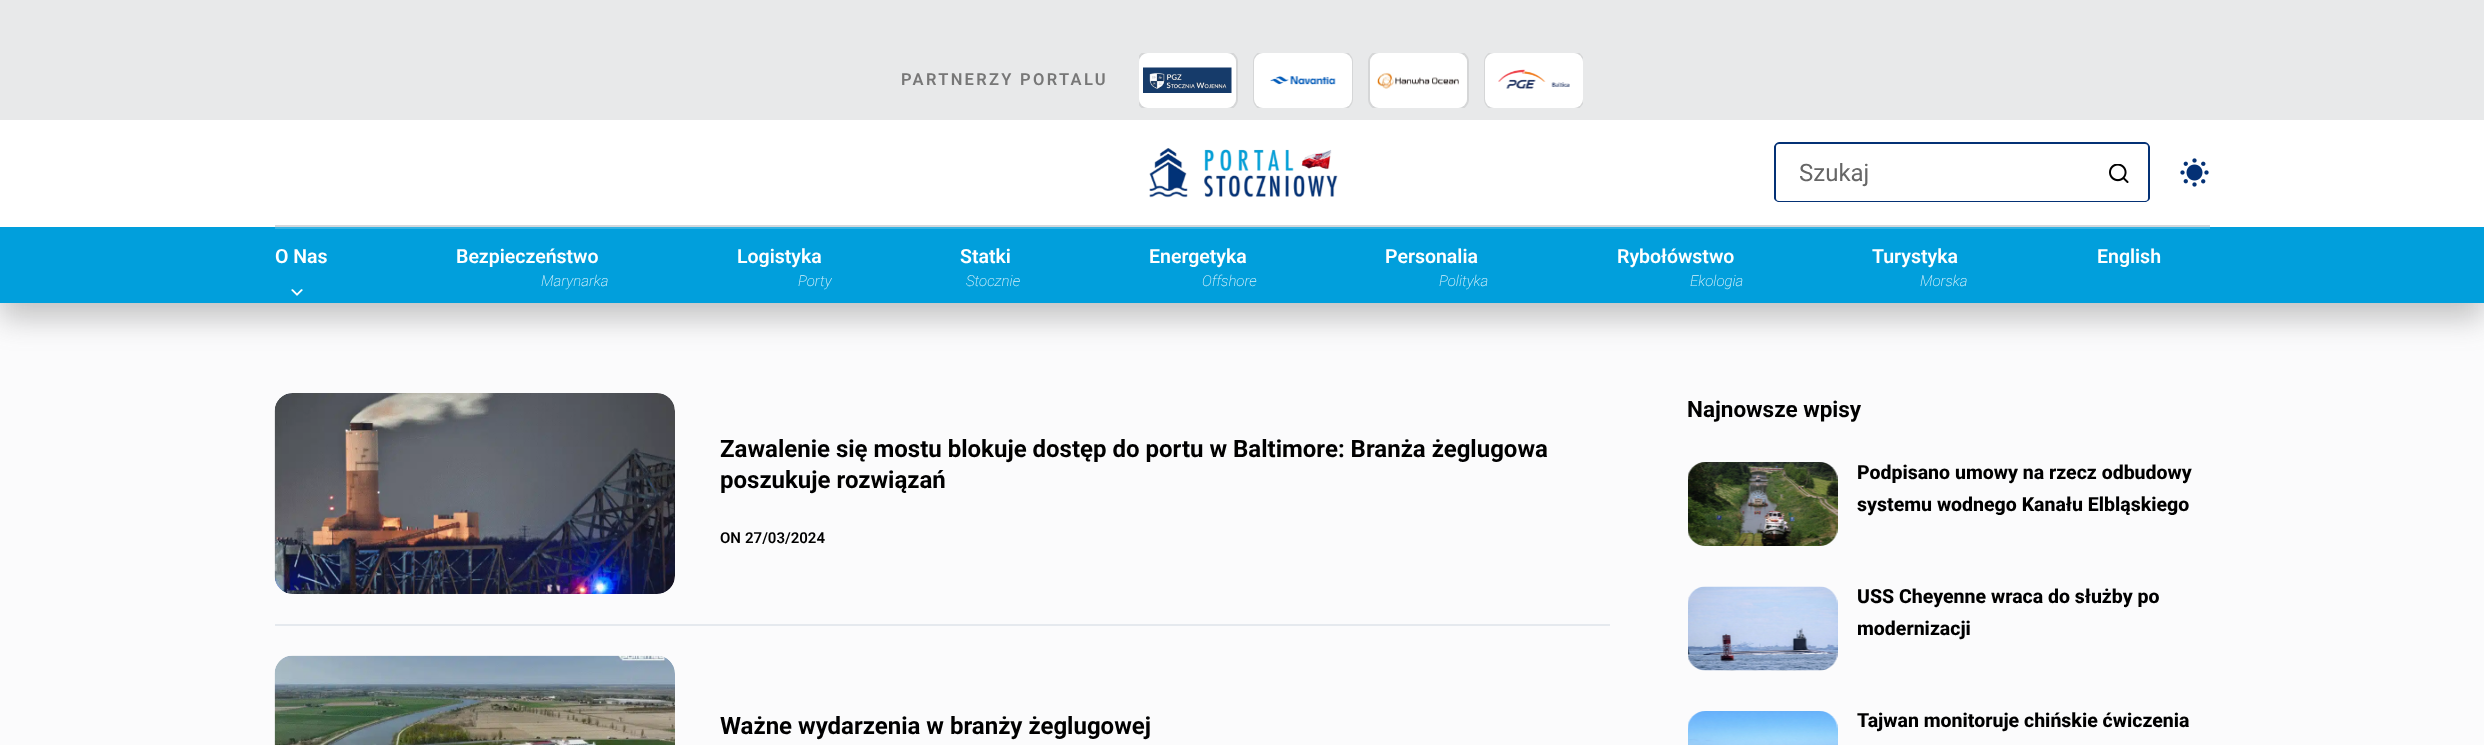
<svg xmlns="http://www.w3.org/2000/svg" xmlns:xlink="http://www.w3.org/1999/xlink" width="2484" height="745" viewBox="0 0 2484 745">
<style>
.cls-1{font:600 16.5px Roboto;letter-spacing:2.3px;fill:#777777}
.cls-2{font:24px Roboto;fill:#666666}
.cls-3{font:600 19.5px Roboto;fill:#ffffff}
.cls-4{font:italic 200 15px Roboto;fill:#d9f1fa}
.cls-5{font:bold 24px Roboto;fill:#000000}
.cls-6{font:600 15px Roboto;fill:#000000}
.cls-7{font:bold 22.5px Roboto;fill:#000000}
.cls-8{font:800 19.5px Roboto;fill:#000000}
</style>
<defs>
<clipPath id="clip1"><rect x="1139" y="53" width="444" height="55"/></clipPath>
</defs>
<rect width="100%" height="100%" fill="#fbfbfc"/>
<rect fill="#e8e9ea" x="0" y="0" width="2484" height="120"/>
<g clip-path="url(#clip1)">
<rect fill="none" stroke="#d5d6d7" stroke-width="2" x="1138" y="52" width="99" height="57" rx="10"/>
</g>
<rect fill="#ffffff" x="1139" y="53" width="97" height="55" rx="9"/>
<image xlink:href="image0.png" x="1143" y="67" width="89" height="26"/>
<g clip-path="url(#clip1)">
<rect fill="none" stroke="#d5d6d7" stroke-width="2" x="1254" y="52" width="98" height="57" rx="10"/>
</g>
<rect fill="#ffffff" x="1254" y="53" width="98" height="55" rx="9"/>
<image xlink:href="image1.png" x="1270" y="76" width="66" height="9"/>
<g clip-path="url(#clip1)">
<rect fill="none" stroke="#d5d6d7" stroke-width="2" x="1369" y="52" width="99" height="57" rx="10"/>
</g>
<rect fill="#ffffff" x="1370" y="53" width="97" height="55" rx="9"/>
<image xlink:href="image2.png" x="1377" y="72" width="82" height="17"/>
<g clip-path="url(#clip1)">
<rect fill="none" stroke="#d5d6d7" stroke-width="2" x="1485" y="52" width="98" height="57" rx="10"/>
</g>
<rect fill="#ffffff" x="1485" y="53" width="98" height="55" rx="9"/>
<image xlink:href="image3.png" x="1498" y="69" width="72" height="20"/>
<rect fill="#5e5e5e" fill-opacity="0.37" filter="blur(15px)" x="0" y="242" width="2484" height="76"/>
<rect fill="#ffffff" x="0" y="120" width="2484" height="107"/>
<rect fill="#d5d8dc" x="275" y="225" width="1935" height="2"/>
<image xlink:href="image4.png" x="1149" y="148" width="189" height="50"/>
<path fill="#043175" fill-rule="evenodd" d="M1779 142H2090V202H1779C1777 202 1774 200 1774 198V147C1774 145 1777 142 1779 142ZM1779 144H2090V201H1779C1777 201 1776 200 1776 198V147C1776 145 1777 144 1779 144Z"/>
<path fill="#043175" fill-rule="evenodd" d="M2090 142H2145C2147 142 2150 145 2150 147V198C2150 200 2147 202 2145 202H2090ZM2090 144H2145C2147 144 2148 145 2148 147V198C2148 200 2147 201 2145 201H2090Z"/>
<image xlink:href="image5.png" x="2109" y="164" width="20" height="19"/>
<image xlink:href="image6.png" x="2180" y="158" width="29" height="29"/>
<rect fill="#019fdc" x="0" y="227" width="2484" height="76"/>
<rect fill="#34b2e3" x="275" y="227" width="1935" height="2"/>
<image xlink:href="image7.png" x="291" y="289" width="12" height="7"/>
<rect fill="#e5e9ee" x="275" y="624" width="1335" height="2"/>
<image xlink:href="image8.png" x="274" y="393" width="401" height="201"/>
<image xlink:href="image9.png" x="274" y="655" width="401" height="90"/>
<image xlink:href="image10.png" x="1688" y="462" width="150" height="84"/>
<image xlink:href="image11.png" x="1688" y="586" width="150" height="85"/>
<image xlink:href="image12.png" x="1688" y="711" width="150" height="34"/>
<text class="cls-1" x="901" y="85">PARTNERZY PORTALU</text>
<text class="cls-2" x="1799" y="181">Szukaj</text>
<text class="cls-3" x="275" y="263">O Nas</text>
<text class="cls-3" x="456" y="263">Bezpieczeństwo</text>
<text class="cls-4" x="541" y="286">Marynarka</text>
<text class="cls-3" x="737" y="263">Logistyka</text>
<text class="cls-4" x="798" y="286">Porty</text>
<text class="cls-3" x="960" y="263">Statki</text>
<text class="cls-4" x="966" y="286">Stocznie</text>
<text class="cls-3" x="1149" y="263">Energetyka</text>
<text class="cls-4" x="1202" y="286">Offshore</text>
<text class="cls-3" x="1385" y="263">Personalia</text>
<text class="cls-4" x="1439" y="286">Polityka</text>
<text class="cls-3" x="1617" y="263">Rybołówstwo</text>
<text class="cls-4" x="1690" y="286">Ekologia</text>
<text class="cls-3" x="1872" y="263">Turystyka</text>
<text class="cls-4" x="1920" y="286">Morska</text>
<text class="cls-3" x="2097" y="263">English</text>
<text class="cls-5"><tspan x="720" y="457">Zawalenie się mostu blokuje dostęp do portu w Baltimore: Branża żeglugowa</tspan><tspan x="720" y="488">poszukuje rozwiązań</tspan></text>
<text class="cls-6" x="720" y="543">ON</text>
<text class="cls-6" x="745" y="543">27/03/2024</text>
<text class="cls-5" x="720" y="734">Ważne wydarzenia w branży żeglugowej</text>
<text class="cls-7" x="1687" y="417">Najnowsze wpisy</text>
<text class="cls-8"><tspan x="1857" y="479">Podpisano umowy na rzecz odbudowy</tspan><tspan x="1857" y="511">systemu wodnego Kanału Elbląskiego</tspan></text>
<text class="cls-8"><tspan x="1857" y="603">USS Cheyenne wraca do służby po</tspan><tspan x="1857" y="635">modernizacji</tspan></text>
<text class="cls-8" x="1857" y="727">Tajwan monitoruje chińskie ćwiczenia</text>
</svg>
